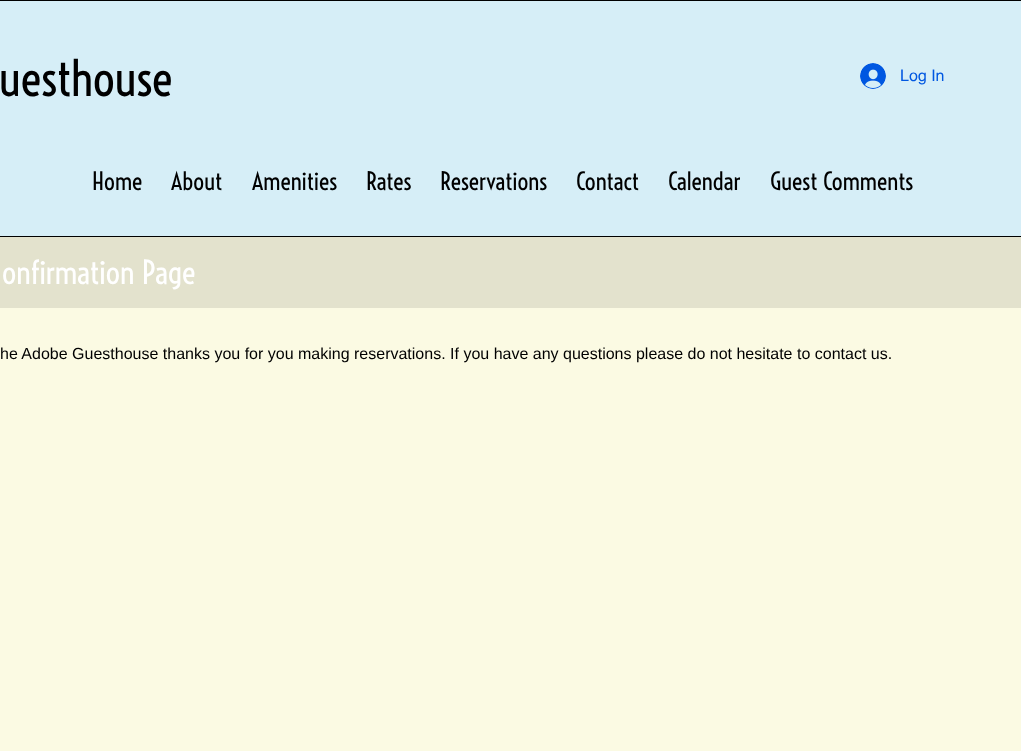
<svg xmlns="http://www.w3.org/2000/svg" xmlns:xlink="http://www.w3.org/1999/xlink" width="1021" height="751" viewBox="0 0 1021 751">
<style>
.cls-1{font:48px Voltaire;fill:#000000}
.cls-2{font:16px helvetica;fill:#0057e1}
.cls-3{font:24px Voltaire;fill:#000000}
.cls-4{font:31.5px Voltaire;fill:#ffffff}
.cls-5{font:16px Liberation Sans;fill:#000000}
</style>
<rect width="100%" height="100%" fill="#fbfae3"/>
<rect fill="#d6eef7" stroke="#000000" x="-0.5" y="0.5" width="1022" height="236"/>
<image xlink:href="image0.png" x="860" y="63" width="26" height="26"/>
<rect fill="#e3e2cd" x="0" y="237" width="1021" height="71"/>
<text class="cls-1" x="-1" y="96">uesthouse</text>
<text class="cls-2" x="900" y="81">Log In</text>
<text class="cls-3" x="92" y="190">Home</text>
<text class="cls-3" x="171" y="190">About</text>
<text class="cls-3" x="252" y="190">Amenities</text>
<text class="cls-3" x="366" y="190">Rates</text>
<text class="cls-3" x="440" y="190">Reservations</text>
<text class="cls-3" x="576" y="190">Contact</text>
<text class="cls-3" x="668" y="190">Calendar</text>
<text class="cls-3" x="770" y="190">Guest Comments</text>
<text class="cls-4" x="2" y="284">onfirmation Page</text>
<text class="cls-5" x="0" y="359">he Adobe Guesthouse thanks you for you making reservations. If you have any questions please do not hesitate to contact us.</text>
</svg>
